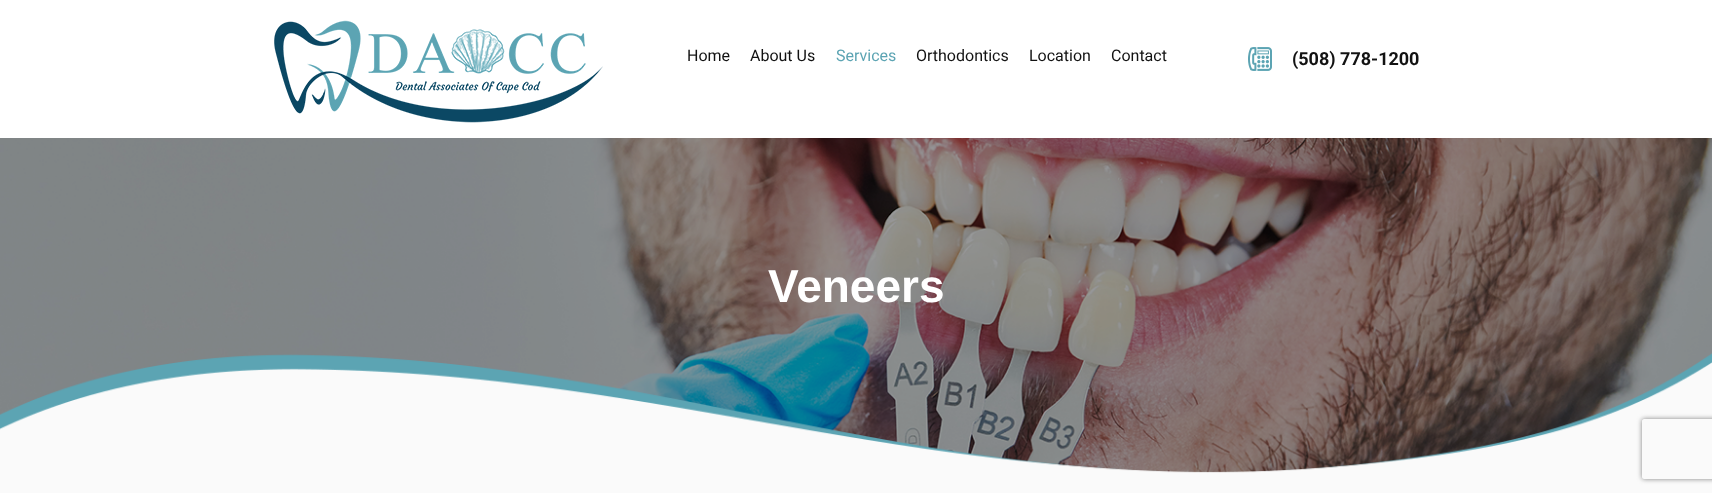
<svg xmlns="http://www.w3.org/2000/svg" xmlns:xlink="http://www.w3.org/1999/xlink" width="1712" height="493" viewBox="0 0 1712 493">
<style>
.cls-1{font:16px Roboto;fill:#121212}
.cls-2{font:16px Roboto;fill:#5ca4b3}
.cls-3{font:bold 18px Roboto;fill:#121212}
.cls-4{font:bold 46px Liberation Sans;fill:#ffffff}
</style>
<defs>
<clipPath id="clip1"><path d="M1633 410H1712V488H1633ZM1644 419H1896C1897 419 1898 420 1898 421V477C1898 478 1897 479 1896 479H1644C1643 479 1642 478 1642 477V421C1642 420 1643 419 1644 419Z" clip-rule="evenodd"/></clipPath>
</defs>
<rect width="100%" height="100%" fill="#ffffff"/>
<image xlink:href="image0.png" x="274" y="20" width="329" height="103"/>
<image xlink:href="image1.png" x="1248" y="47" width="24" height="24"/>
<rect fill="#fafafa" x="0" y="362" width="1712" height="131"/>
<image xlink:href="image2.png" x="0" y="138" width="1712" height="335"/>
<g clip-path="url(#clip1)">
<rect fill="#808080" filter="blur(2.5px)" x="1642" y="419" width="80" height="60" rx="2"/>
</g>
<text class="cls-1" x="687" y="61">Home</text>
<text class="cls-1" x="750" y="61">About Us</text>
<text class="cls-2" x="836" y="61">Services</text>
<text class="cls-1" x="916" y="61">Orthodontics</text>
<text class="cls-1" x="1029" y="61">Location</text>
<text class="cls-1" x="1111" y="61">Contact</text>
<text class="cls-3" x="1292" y="65">(508) 778-1200</text>
<text class="cls-4" x="768" y="302">Veneers</text>
</svg>
